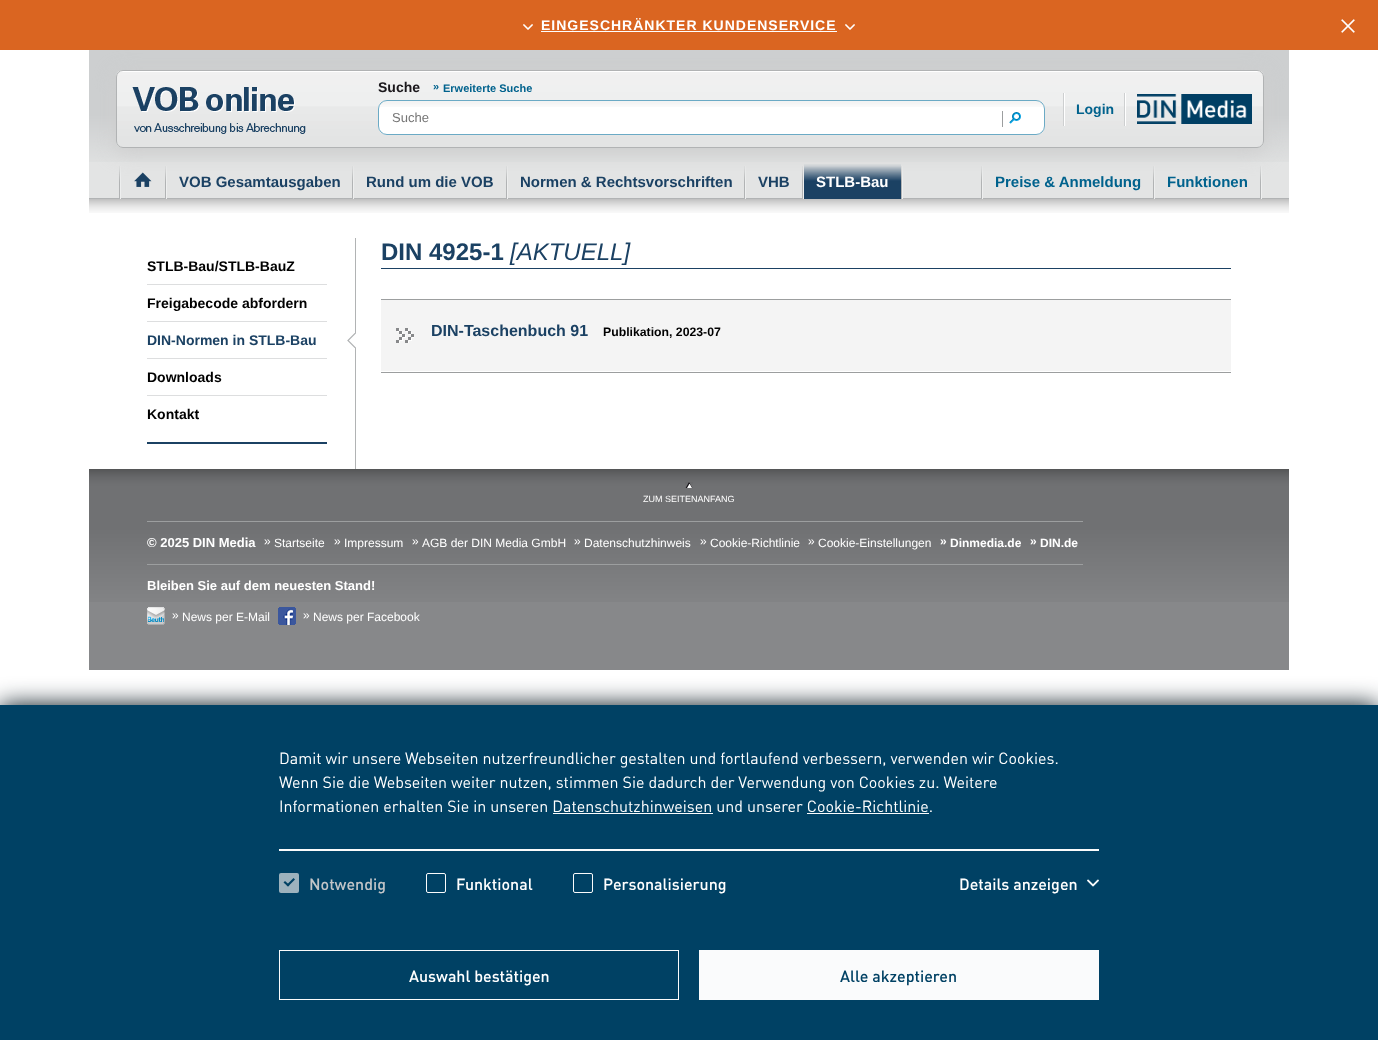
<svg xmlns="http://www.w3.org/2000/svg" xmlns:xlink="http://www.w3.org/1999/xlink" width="1378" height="1040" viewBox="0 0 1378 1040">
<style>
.cls-1{font:bold 14px Liberation Sans;letter-spacing:1px;fill:#ffffff}
.cls-2{font:bold 14px Liberation Sans;fill:#1a171b}
.cls-3{font:bold 11px Liberation Sans;fill:#00628d}
.cls-4{font:13px Liberation Sans;fill:#757575}
.cls-5{font:bold 14px Liberation Sans;fill:#00628d}
.cls-6{font:bold 15px Liberation Sans;fill:#1b4163}
.cls-7{font:bold 15px Liberation Sans;fill:#ffffff}
.cls-8{font:bold 15px Liberation Sans;fill:#00628d}
.cls-9{font:bold 14px Liberation Sans;fill:#000000}
.cls-10{font:bold 14px Liberation Sans;fill:#1b4163}
.cls-11{font:bold 24px Liberation Sans;fill:#1b4163}
.cls-12{font:italic 24px Liberation Sans;fill:#1b4163}
.cls-13{font:bold 16px Liberation Sans;fill:#1b4163}
.cls-14{font:bold 12.25px Liberation Sans;fill:#000000}
.cls-15{font:9px Liberation Sans;fill:#ffffff}
.cls-16{font:bold 13px Liberation Sans;fill:#ffffff}
.cls-17{font:12px Liberation Sans;fill:#ffffff}
.cls-18{font:bold 12px Liberation Sans;fill:#ffffff}
.cls-19{font:16px DIN;fill:#ffffff}
.cls-20{font:500 16px DIN;fill:#c2c5c8}
.cls-21{font:500 16px DIN;fill:#ffffff}
.cls-22{font:500 16px DIN;fill:#004164}
</style>
<rect width="100%" height="100%" fill="#ffffff"/>
<rect fill="#da6521" x="0" y="0" width="1378" height="50"/>
<image xlink:href="image0.png" x="523" y="24" width="10" height="6"/>
<rect fill="#ffffff" x="541" y="31" width="296" height="1"/>
<image xlink:href="image0.png" x="845" y="24" width="10" height="6"/>
<image xlink:href="image1.png" x="1341" y="19" width="14" height="14"/>
<image xlink:href="image2.png" x="89" y="199" width="1200" height="14"/>
<rect fill="#e3e4e4" x="89" y="162" width="1200" height="36"/>
<image xlink:href="image3.png" x="89" y="50" width="1200" height="112"/>
<rect fill="#b1b3b4" x="89" y="198" width="1200" height="1"/>
<image xlink:href="image9.png" x="119" y="166" width="2" height="33"/>
<image xlink:href="image9.png" x="981" y="166" width="2" height="33"/>
<rect fill="#cdcdcd" filter="blur(10px)" x="116" y="74" width="1148" height="78" rx="7"/>
<rect fill="#e3e4e4" x="116" y="70" width="1148" height="78" rx="7"/>
<image xlink:href="image4.png" x="116" y="71" width="1148" height="73"/>
<rect fill="none" stroke="#b1b3b4" x="116.5" y="70.5" width="1147" height="77" rx="6.5"/>
<image xlink:href="image5.png" x="132" y="87" width="174" height="47"/>
<rect fill="#ffffff" x="378" y="100" width="667" height="35" rx="9"/>
<image xlink:href="image6.png" x="379" y="101" width="665" height="6"/>
<rect fill="none" stroke="#6baac5" x="378.5" y="100.5" width="666" height="34" rx="8.5"/>
<rect fill="#9c9e9f" x="1002" y="111" width="1" height="16"/>
<image xlink:href="image7.png" x="1009" y="112" width="12" height="12"/>
<rect fill="#cdcfd0" x="1063" y="93" width="1" height="33"/>
<rect fill="#ffffff" x="1064" y="93" width="1" height="33"/>
<rect fill="#cdcfd0" x="1124" y="93" width="1" height="33"/>
<rect fill="#ffffff" x="1125" y="93" width="1" height="33"/>
<image xlink:href="image8.png" x="1137" y="94" width="115" height="30"/>
<image xlink:href="image10.png" x="165" y="166" width="2" height="33"/>
<image xlink:href="image11.png" x="134" y="172" width="18" height="15"/>
<image xlink:href="image10.png" x="352" y="166" width="2" height="33"/>
<image xlink:href="image10.png" x="506" y="166" width="2" height="33"/>
<image xlink:href="image10.png" x="744" y="166" width="2" height="33"/>
<image xlink:href="image10.png" x="802" y="166" width="2" height="33"/>
<image xlink:href="image10.png" x="901" y="166" width="2" height="33"/>
<image xlink:href="image12.png" x="804" y="164" width="97" height="35"/>
<image xlink:href="image10.png" x="1153" y="166" width="2" height="33"/>
<image xlink:href="image13.png" x="1260" y="166" width="2" height="33"/>
<rect fill="#b1b3b4" x="355" y="238" width="1" height="231"/>
<rect fill="#1b4163" x="147" y="442" width="180" height="2"/>
<rect fill="#dddedf" x="147" y="284" width="180" height="1"/>
<rect fill="#dddedf" x="147" y="321" width="180" height="1"/>
<image xlink:href="image14.png" x="347" y="333" width="9" height="15"/>
<rect fill="#dddedf" x="147" y="358" width="180" height="1"/>
<rect fill="#dddedf" x="147" y="395" width="180" height="1"/>
<rect fill="#1b4163" x="381" y="268" width="850" height="1"/>
<rect fill="#9c9e9f" x="381" y="372" width="850" height="1"/>
<rect fill="#f4f4f4" x="381" y="300" width="850" height="71"/>
<rect fill="#9c9e9f" x="381" y="299" width="850" height="1"/>
<image xlink:href="image15.png" x="396" y="328" width="18" height="15"/>
<rect fill="#87888a" x="89" y="602" width="1200" height="68"/>
<image xlink:href="image16.png" x="89" y="469" width="1200" height="133"/>
<image xlink:href="image17.png" x="685" y="482" width="8" height="6"/>
<rect fill="#9c9e9f" x="147" y="521" width="936" height="1"/>
<rect fill="#9c9e9f" x="147" y="564" width="936" height="1"/>
<image xlink:href="image18.png" x="147" y="607" width="18" height="18"/>
<image xlink:href="image19.png" x="278" y="607" width="18" height="18"/>
<rect fill="#001019" filter="blur(12px)" x="0" y="705" width="1378" height="335"/>
<rect fill="#004164" x="0" y="705" width="1378" height="335"/>
<rect fill="#fafbfc" x="553" y="813" width="160" height="1"/>
<rect fill="#fafbfc" x="807" y="813" width="122" height="1"/>
<rect fill="#fafbfc" x="279" y="849" width="820" height="2"/>
<rect fill="#9db2bd" x="279" y="873" width="20" height="20" rx="2"/>
<path fill="#004164" d="M293.5 878L295 879.5L288 886.5L286.5 885Z"/>
<path fill="#004164" d="M285 881L289.5 885L288 886.5L283.5 882.5Z"/>
<rect fill="none" stroke="#fafbfc" x="426.5" y="873.5" width="19" height="19" rx="1.5"/>
<rect fill="none" stroke="#fafbfc" x="573.5" y="873.5" width="19" height="19" rx="1.5"/>
<image xlink:href="image20.png" x="1087" y="879" width="12" height="8"/>
<rect fill="none" stroke="#fafbfc" x="279.5" y="950.5" width="399" height="49"/>
<rect fill="#fafbfc" x="699" y="950" width="400" height="50"/>
<text class="cls-1" x="541" y="30">EINGESCHRÄNKTER KUNDENSERVICE</text>
<text class="cls-2" x="378" y="92">Suche</text>
<text class="cls-3" x="433" y="90">»</text>
<text class="cls-3" x="443" y="92">Erweiterte Suche</text>
<text class="cls-4" x="392" y="122">Suche</text>
<text class="cls-5" x="1076" y="114">Login</text>
<text class="cls-6" x="179" y="187">VOB Gesamtausgaben</text>
<text class="cls-6" x="366" y="187">Rund um die VOB</text>
<text class="cls-6" x="520" y="187">Normen &amp; Rechtsvorschriften</text>
<text class="cls-6" x="758" y="187">VHB</text>
<text class="cls-7" x="816" y="187">STLB-Bau</text>
<text class="cls-8" x="995" y="187">Preise &amp; Anmeldung</text>
<text class="cls-8" x="1167" y="187">Funktionen</text>
<text class="cls-9" x="147" y="271">STLB-Bau/STLB-BauZ</text>
<text class="cls-9" x="147" y="308">Freigabecode abfordern</text>
<text class="cls-10" x="147" y="345">DIN-Normen in STLB-Bau</text>
<text class="cls-9" x="147" y="382">Downloads</text>
<text class="cls-9" x="147" y="419">Kontakt</text>
<text class="cls-11" x="381" y="260">DIN 4925-1</text>
<text class="cls-12" x="510" y="260">[AKTUELL]</text>
<text class="cls-13" x="431" y="336">DIN-Taschenbuch 91</text>
<text class="cls-14" x="603" y="336">Publikation, 2023-07</text>
<text class="cls-15" x="643" y="502">ZUM SEITENANFANG</text>
<text class="cls-16" x="147" y="547">© 2025 DIN Media</text>
<text class="cls-17" x="264" y="545">»</text>
<text class="cls-17" x="274" y="547">Startseite</text>
<text class="cls-17" x="334" y="545">»</text>
<text class="cls-17" x="344" y="547">Impressum</text>
<text class="cls-17" x="412" y="545">»</text>
<text class="cls-17" x="422" y="547">AGB der DIN Media GmbH</text>
<text class="cls-17" x="574" y="545">»</text>
<text class="cls-17" x="584" y="547">Datenschutzhinweis</text>
<text class="cls-17" x="700" y="545">»</text>
<text class="cls-17" x="710" y="547">Cookie-Richtlinie</text>
<text class="cls-17" x="808" y="545">»</text>
<text class="cls-17" x="818" y="547">Cookie-Einstellungen</text>
<text class="cls-18" x="940" y="545">»</text>
<text class="cls-18" x="950" y="547">Dinmedia.de</text>
<text class="cls-18" x="1030" y="545">»</text>
<text class="cls-18" x="1040" y="547">DIN.de</text>
<text class="cls-16" x="147" y="590">Bleiben Sie auf dem neuesten Stand!</text>
<text class="cls-17" x="172" y="619">»</text>
<text class="cls-17" x="182" y="621">News per E-Mail</text>
<text class="cls-17" x="303" y="619">»</text>
<text class="cls-17" x="313" y="621">News per Facebook</text>
<text class="cls-19"><tspan x="279" y="764">Damit wir unsere Webseiten nutzerfreundlicher gestalten und fortlaufend verbessern, verwenden wir Cookies.</tspan><tspan x="279" y="788">Wenn Sie die Webseiten weiter nutzen, stimmen Sie dadurch der Verwendung von Cookies zu. Weitere</tspan><tspan x="279" y="812">Informationen erhalten Sie in unseren Datenschutzhinweisen und unserer Cookie-Richtlinie.</tspan></text>
<text class="cls-20" x="309" y="890">Notwendig</text>
<text class="cls-21" x="456" y="890">Funktional</text>
<text class="cls-21" x="603" y="890">Personalisierung</text>
<text class="cls-21" x="959" y="890">Details anzeigen</text>
<text class="cls-21" x="409" y="982">Auswahl bestätigen</text>
<text class="cls-22" x="840" y="982">Alle akzeptieren</text>
</svg>
